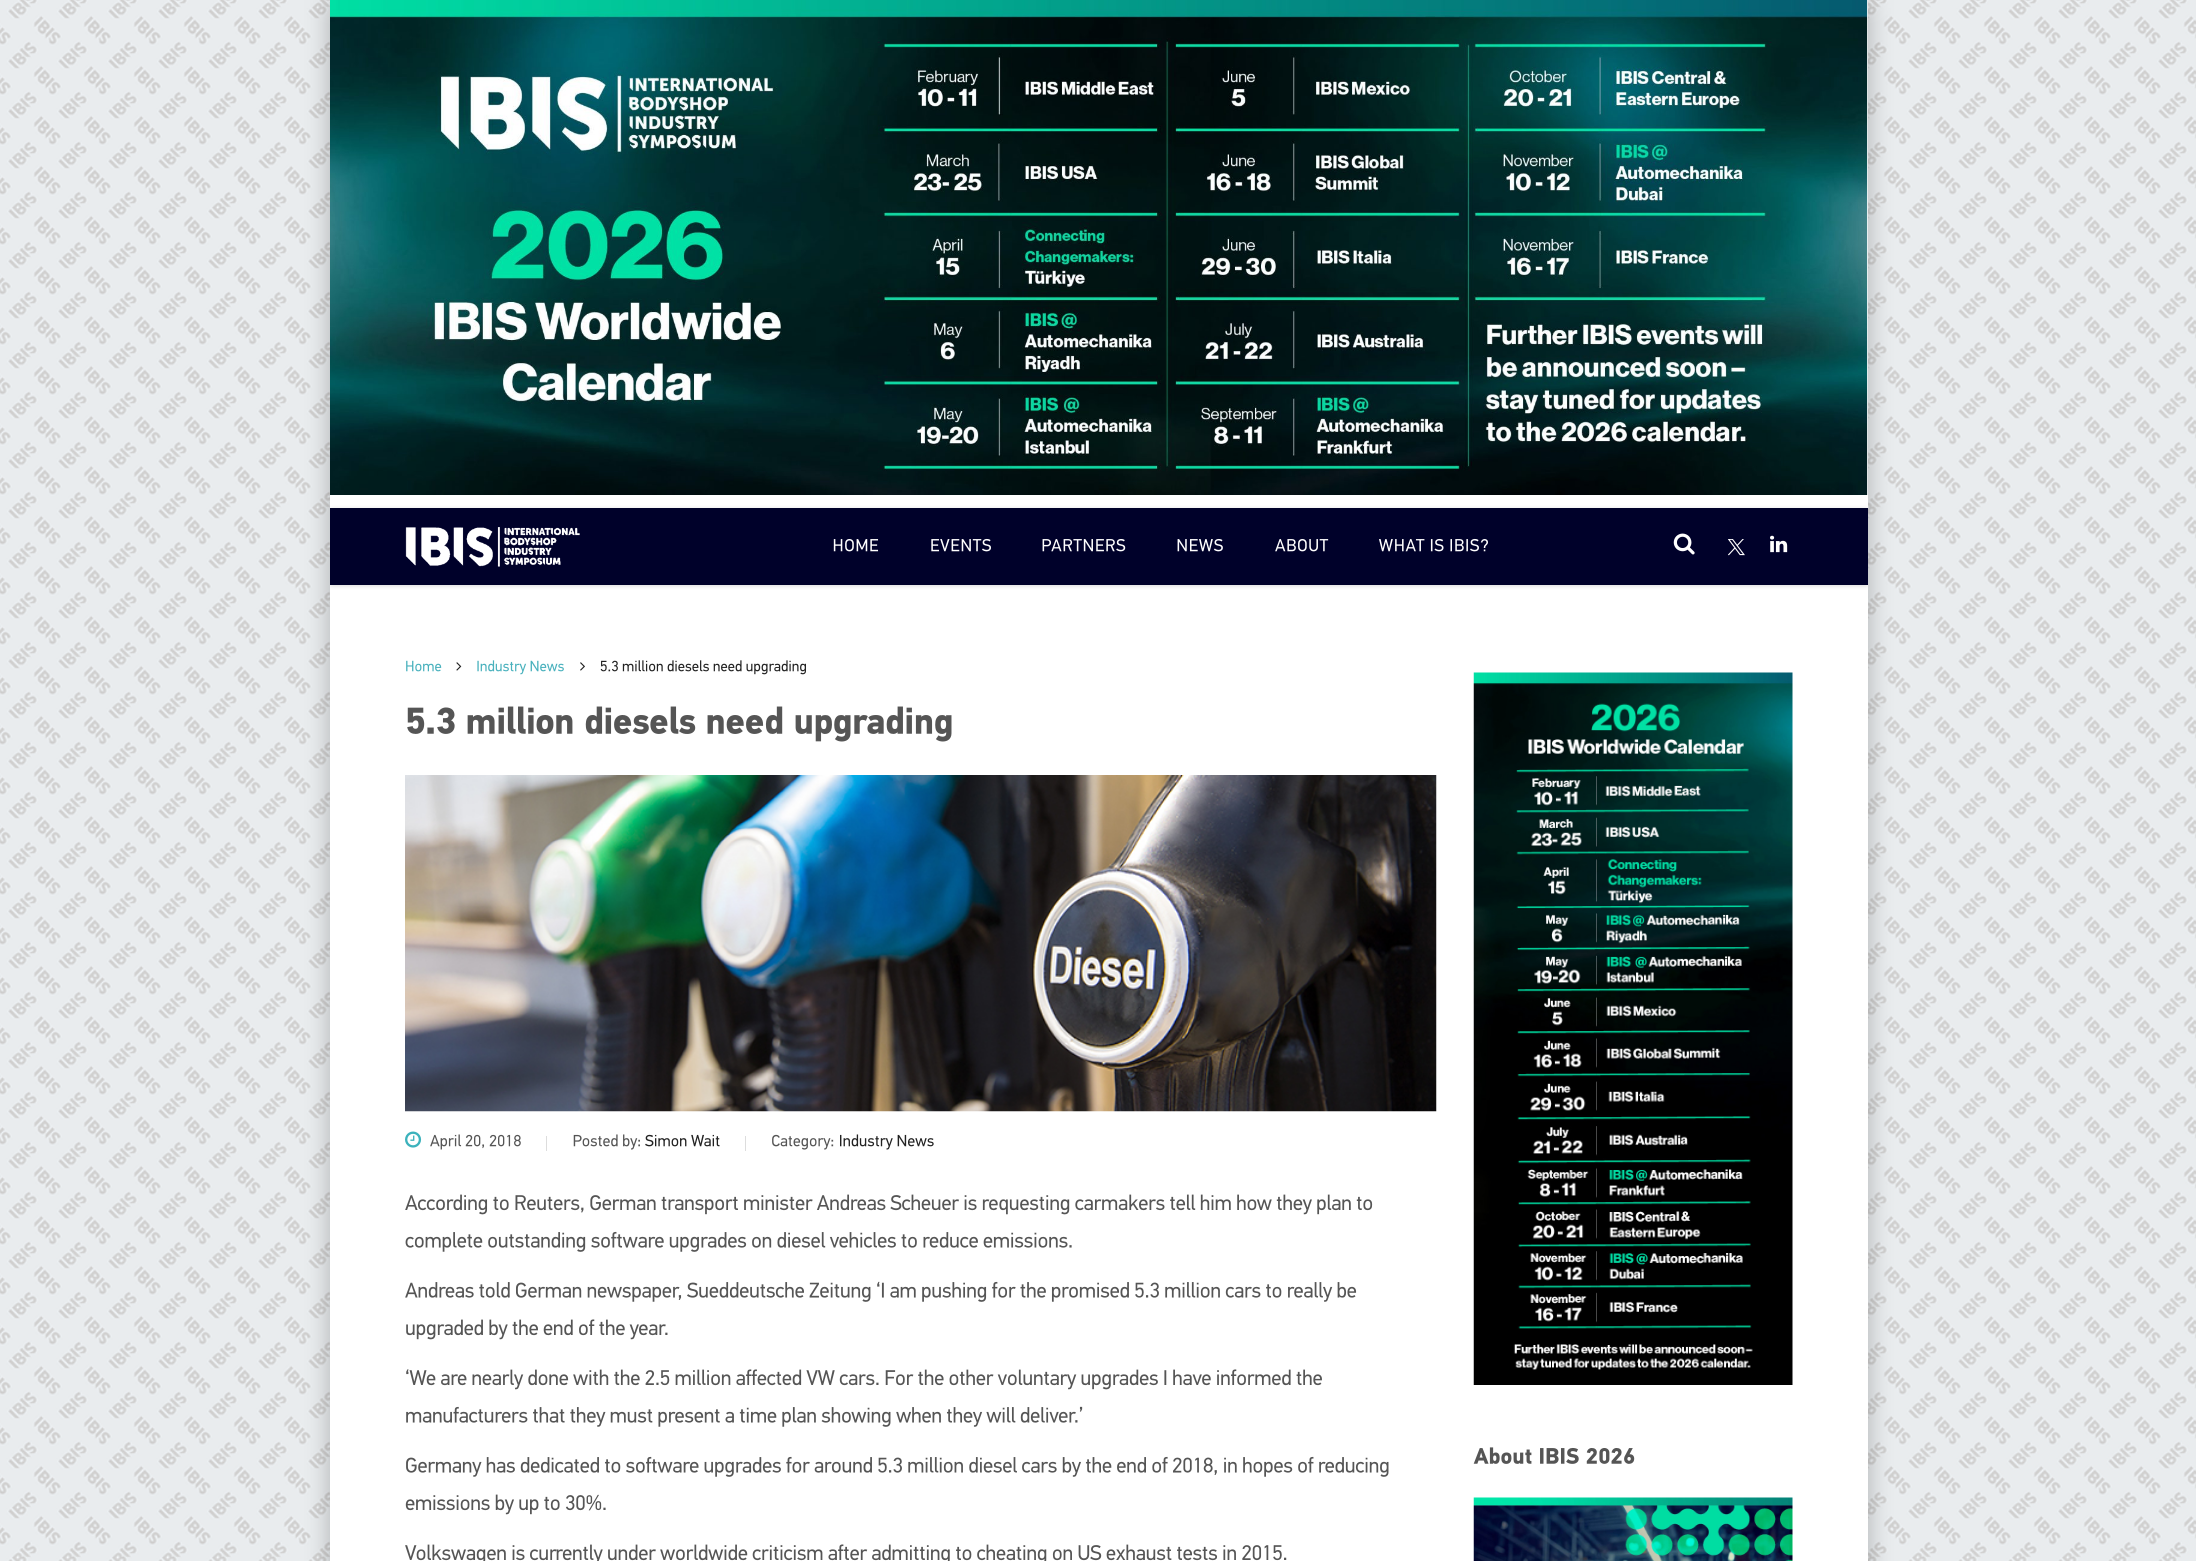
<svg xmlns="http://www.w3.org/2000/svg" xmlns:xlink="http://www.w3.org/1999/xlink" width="2196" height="1561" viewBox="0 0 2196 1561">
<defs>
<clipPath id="clip1"><rect x="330" y="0" width="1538" height="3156"/></clipPath>
</defs>
<rect width="100%" height="100%" fill="#ffffff"/>
<image xlink:href="image0.png" x="0" y="0" width="2196" height="1561"/>
<rect fill="#000000" fill-opacity="0.25" filter="blur(12.5px)" x="330" y="0" width="1538" height="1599"/>
<rect fill="#ffffff" x="330" y="0" width="1538" height="1561"/>
<image xlink:href="image1.png" x="330" y="0" width="1538" height="495"/>
<g clip-path="url(#clip1)">
<rect fill="#000000" fill-opacity="0.15" filter="blur(2px)" x="330" y="509" width="1538" height="77"/>
</g>
<rect fill="#00012a" x="330" y="508" width="1538" height="77"/>
<image xlink:href="image2.png" x="405" y="527" width="175" height="40"/>
<image xlink:href="image3.png" x="833" y="539" width="46" height="13"/>
<image xlink:href="image4.png" x="931" y="538" width="60" height="14"/>
<image xlink:href="image5.png" x="1042" y="539" width="84" height="13"/>
<image xlink:href="image6.png" x="1177" y="538" width="46" height="14"/>
<image xlink:href="image7.png" x="1275" y="539" width="54" height="13"/>
<image xlink:href="image8.png" x="1379" y="538" width="109" height="14"/>
<image xlink:href="image9.png" x="1673" y="533" width="22" height="22"/>
<image xlink:href="image10.png" x="1728" y="539" width="17" height="17"/>
<image xlink:href="image11.png" x="1770" y="535" width="18" height="18"/>
<image xlink:href="image12.png" x="406" y="660" width="36" height="12"/>
<image xlink:href="image13.png" x="456" y="662" width="6" height="9"/>
<image xlink:href="image14.png" x="477" y="660" width="87" height="15"/>
<image xlink:href="image15.png" x="580" y="662" width="5" height="9"/>
<image xlink:href="image16.png" x="600" y="660" width="206" height="15"/>
<image xlink:href="image17.png" x="407" y="706" width="545" height="36"/>
<image xlink:href="image18.png" x="405" y="775" width="1032" height="337"/>
<image xlink:href="image19.png" x="405" y="1131" width="17" height="17"/>
<image xlink:href="image20.png" x="430" y="1134" width="91" height="16"/>
<rect fill="#dddddd" x="546" y="1136" width="1" height="15"/>
<image xlink:href="image21.png" x="573" y="1134" width="67" height="16"/>
<image xlink:href="image22.png" x="645" y="1134" width="75" height="13"/>
<rect fill="#dddddd" x="745" y="1136" width="1" height="15"/>
<image xlink:href="image23.png" x="772" y="1134" width="62" height="16"/>
<image xlink:href="image24.png" x="840" y="1134" width="94" height="16"/>
<image xlink:href="image25.png" x="405" y="1194" width="968" height="21"/>
<image xlink:href="image26.png" x="405" y="1231" width="667" height="21"/>
<image xlink:href="image27.png" x="405" y="1281" width="952" height="21"/>
<image xlink:href="image28.png" x="406" y="1319" width="262" height="21"/>
<image xlink:href="image29.png" x="406" y="1369" width="916" height="21"/>
<image xlink:href="image30.png" x="406" y="1406" width="677" height="21"/>
<image xlink:href="image31.png" x="406" y="1456" width="983" height="21"/>
<image xlink:href="image32.png" x="405" y="1494" width="201" height="21"/>
<image xlink:href="image33.png" x="405" y="1544" width="882" height="17"/>
<image xlink:href="image34.png" x="1473" y="672" width="320" height="713"/>
<image xlink:href="image35.png" x="1473" y="1447" width="162" height="17"/>
<image xlink:href="image36.png" x="1473" y="1497" width="320" height="64"/>
</svg>
